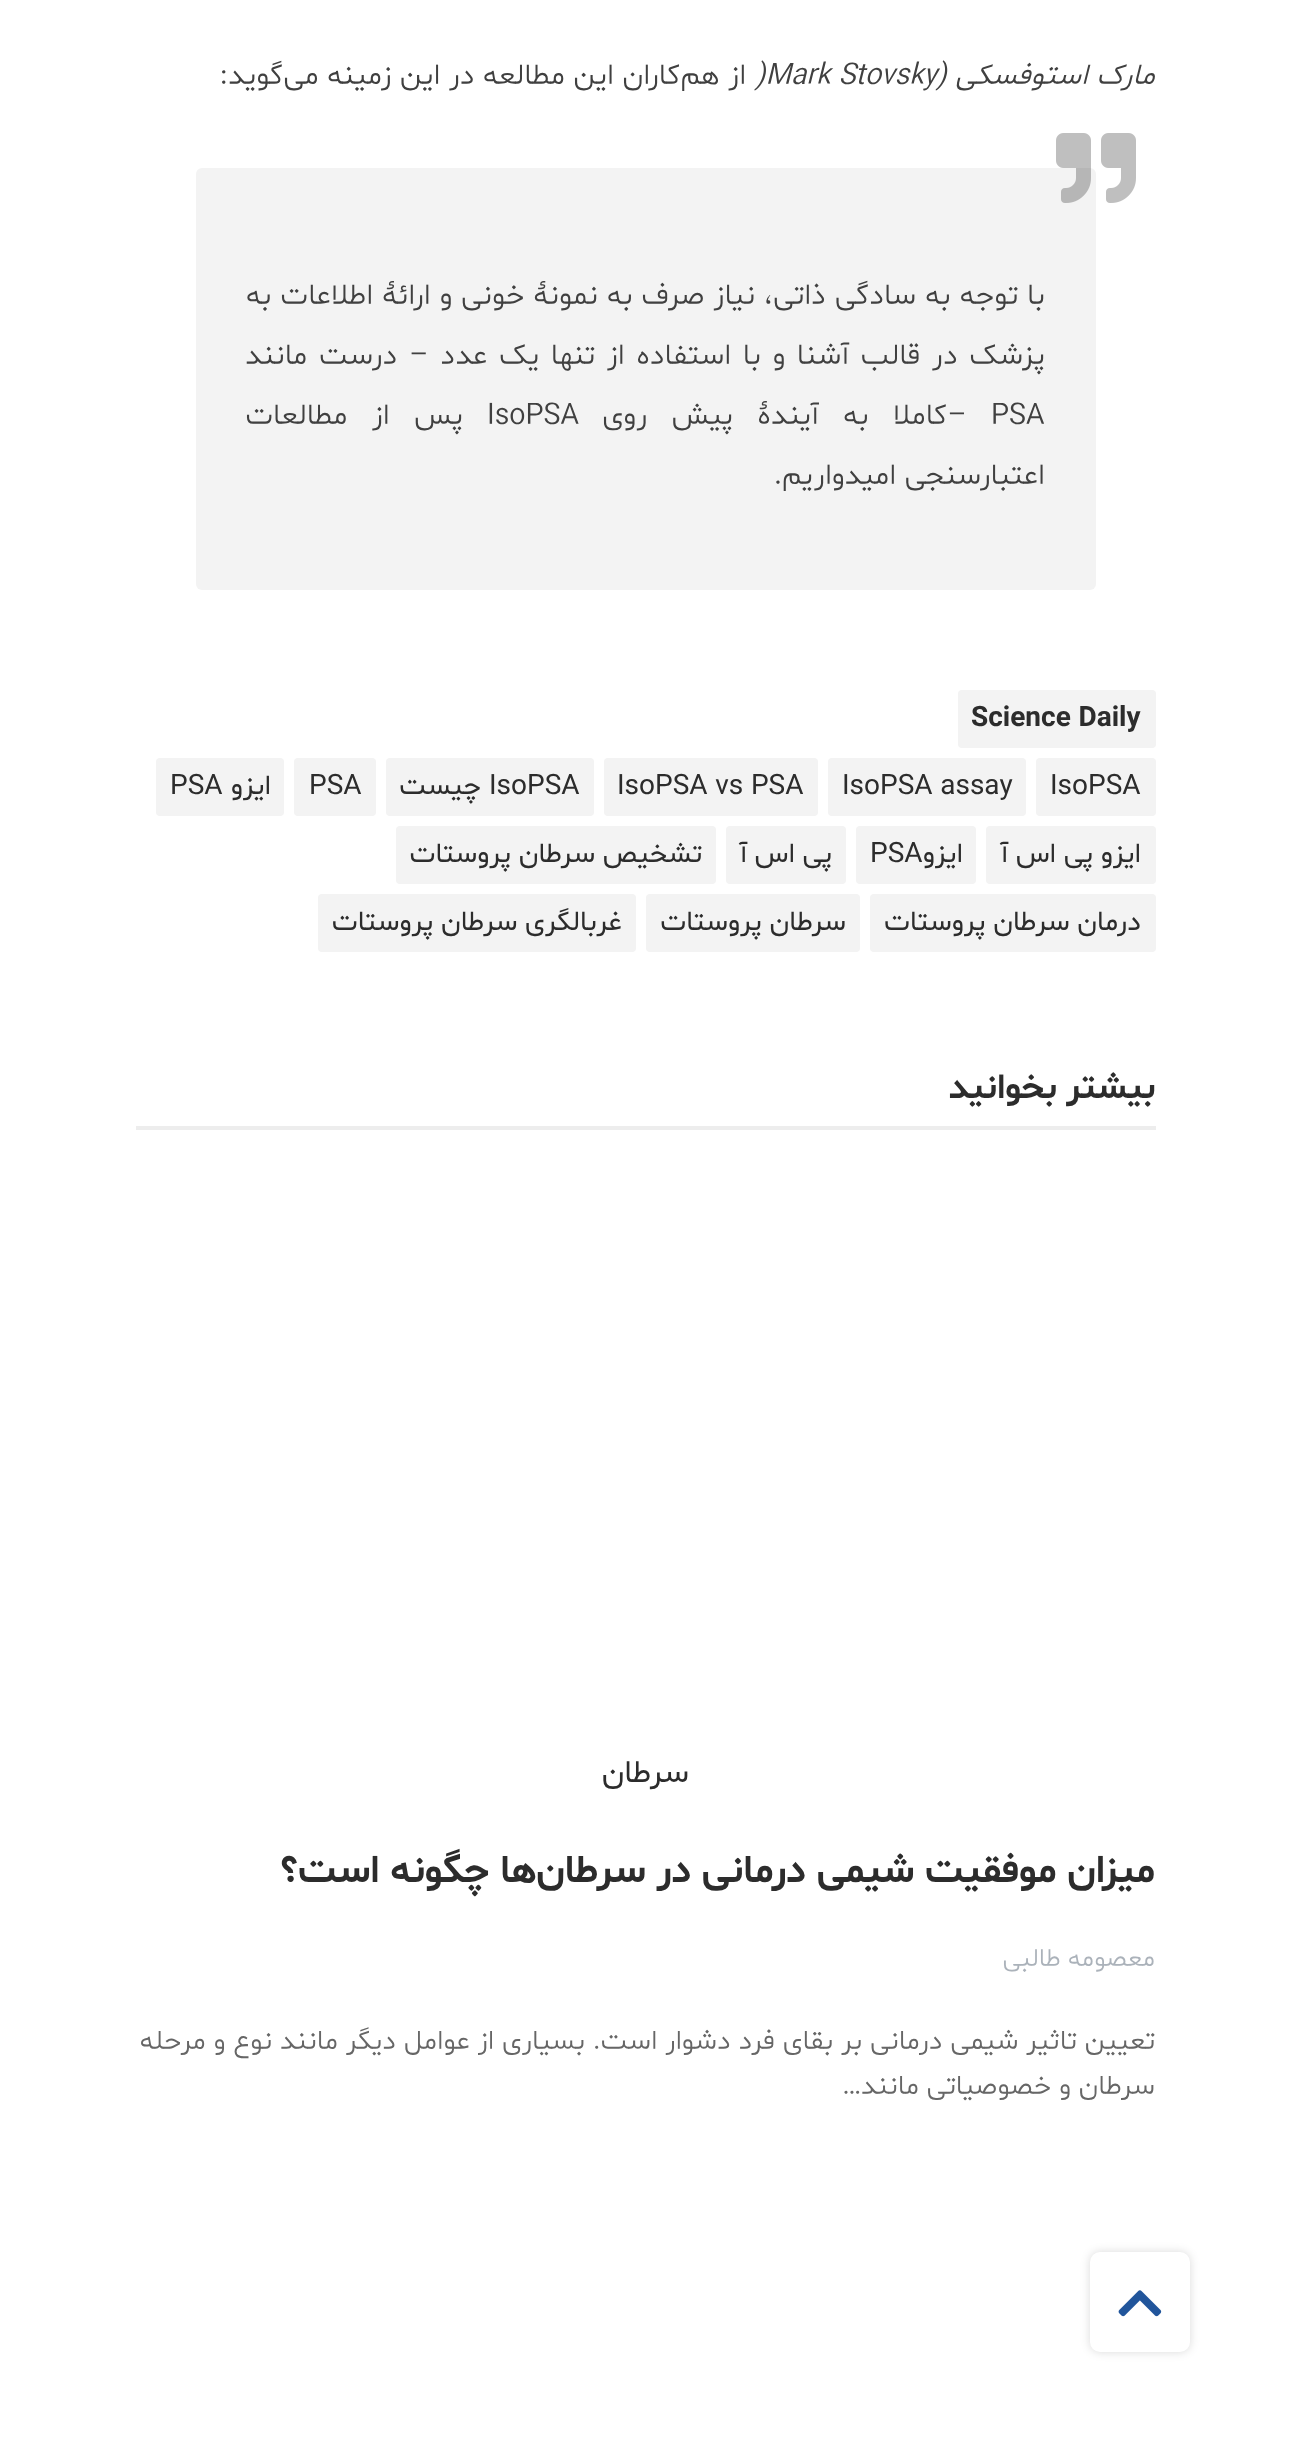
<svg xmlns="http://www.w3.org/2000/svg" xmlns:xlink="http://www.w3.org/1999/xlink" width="1289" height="2452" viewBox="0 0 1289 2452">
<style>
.cls-1{font:italic 300 30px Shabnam;fill:#404040}
.cls-2{font:italic 300 30px Shabnam;direction:rtl;fill:#404040}
.cls-3{font:300 30px Shabnam;direction:rtl;fill:#404040}
.cls-4{font:300 30px Shabnam;fill:#404040}
.cls-5{font:bold 28px Shabnam;fill:#2c2c2c}
.cls-6{font:28px Shabnam;fill:#2c2c2c}
.cls-7{font:28px Shabnam;direction:rtl;fill:#2c2c2c}
.cls-8{font:bold 36px Shabnam;direction:rtl;fill:#2c2c2c}
.cls-9{font:32px Shabnam;direction:rtl;fill:#2c2c2c}
.cls-10{font:bold 40px Shabnam;direction:rtl;fill:#2c2c2c}
.cls-11{font:300 26px Shabnam;direction:rtl;fill:#abb2ba}
.cls-12{font:300 28px Shabnam;direction:rtl;fill:#666666}
</style>
<rect width="100%" height="100%" fill="#ffffff"/>
<rect fill="#f3f3f3" x="196" y="168" width="900" height="422" rx="6"/>
<image xlink:href="image0.png" x="1056" y="133" width="80" height="70"/>
<rect fill="#f3f3f3" x="958" y="690" width="198" height="58" rx="4"/>
<rect fill="#f3f3f3" x="1036" y="758" width="120" height="58" rx="4"/>
<rect fill="#f3f3f3" x="828" y="758" width="198" height="58" rx="4"/>
<rect fill="#f3f3f3" x="604" y="758" width="214" height="58" rx="4"/>
<rect fill="#f3f3f3" x="386" y="758" width="208" height="58" rx="4"/>
<rect fill="#f3f3f3" x="294" y="758" width="82" height="58" rx="4"/>
<rect fill="#f3f3f3" x="156" y="758" width="128" height="58" rx="4"/>
<rect fill="#f3f3f3" x="986" y="826" width="170" height="58" rx="4"/>
<rect fill="#f3f3f3" x="856" y="826" width="120" height="58" rx="4"/>
<rect fill="#f3f3f3" x="726" y="826" width="120" height="58" rx="4"/>
<rect fill="#f3f3f3" x="396" y="826" width="320" height="58" rx="4"/>
<rect fill="#f3f3f3" x="870" y="894" width="286" height="58" rx="4"/>
<rect fill="#f3f3f3" x="646" y="894" width="214" height="58" rx="4"/>
<rect fill="#f3f3f3" x="318" y="894" width="318" height="58" rx="4"/>
<rect fill="#ededed" x="136" y="1126" width="1020" height="4"/>
<rect fill="#000000" fill-opacity="0.15" filter="blur(5px)" x="1090" y="2252" width="100" height="100" rx="10"/>
<rect fill="#ffffff" x="1090" y="2252" width="100" height="100" rx="10"/>
<image xlink:href="image1.png" x="1118" y="2290" width="44" height="27"/>
<text class="cls-1" x="755" y="84">)Mark Stovsky</text>
<text class="cls-2" x="1155" y="84">مارک استوفسکی (</text>
<text class="cls-3" x="746" y="84">از هم‌کاران این مطالعه در این زمینه می‌گوید:</text>
<text class="cls-3" x="1045" y="304" word-spacing="0.6">با توجه به سادگی ذاتی، نیاز صرف به نمونۀ خونی و ارائۀ اطلاعات به</text>
<text class="cls-3" x="1045" y="364" word-spacing="3.4">پزشک در قالب آشنا و با استفاده از تنها یک عدد – درست مانند</text>
<text class="cls-4" x="991" y="424">PSA</text>
<text class="cls-3" x="967" y="424" word-spacing="16">–کاملا به آیندۀ پیش روی</text>
<text class="cls-4" x="487" y="424">IsoPSA</text>
<text class="cls-3" x="463" y="424" word-spacing="16">پس از مطالعات</text>
<text class="cls-3" x="1045" y="484">اعتبارسنجی امیدواریم.</text>
<text class="cls-5" x="971" y="726">Science Daily</text>
<text class="cls-6" x="1050" y="794">IsoPSA</text>
<text class="cls-6" x="842" y="794">IsoPSA assay</text>
<text class="cls-6" x="617" y="794">IsoPSA vs PSA</text>
<text class="cls-6" x="489" y="794">IsoPSA</text>
<text class="cls-7" x="481" y="794">چیست</text>
<text class="cls-6" x="309" y="794">PSA</text>
<text class="cls-7" x="271" y="794">ایزو</text>
<text class="cls-6" x="170" y="794">PSA</text>
<text class="cls-7" x="1141" y="862">ایزو پی اس آ</text>
<text class="cls-7" x="963" y="862">ایزو</text>
<text class="cls-6" x="870" y="862">PSA</text>
<text class="cls-7" x="832" y="862">پی اس آ</text>
<text class="cls-7" x="702" y="862">تشخیص سرطان پروستات</text>
<text class="cls-7" x="1141" y="930">درمان سرطان پروستات</text>
<text class="cls-7" x="846" y="930">سرطان پروستات</text>
<text class="cls-7" x="622" y="930">غربالگری سرطان پروستات</text>
<text class="cls-8" x="1155" y="1098">بیشتر بخوانید</text>
<text class="cls-9" x="689" y="1782">سرطان</text>
<text class="cls-10" x="1155" y="1882">میزان موفقیت شیمی درمانی در سرطان‌ها چگونه است؟</text>
<text class="cls-11" x="1155" y="1966">معصومه طالبی</text>
<text class="cls-12"><tspan x="1155" y="2049">تعیین تاثیر شیمی درمانی بر بقای فرد دشوار است. بسیاری از عوامل دیگر مانند نوع و مرحله</tspan><tspan x="1155" y="2094">سرطان و خصوصیاتی مانند…</tspan></text>
</svg>
